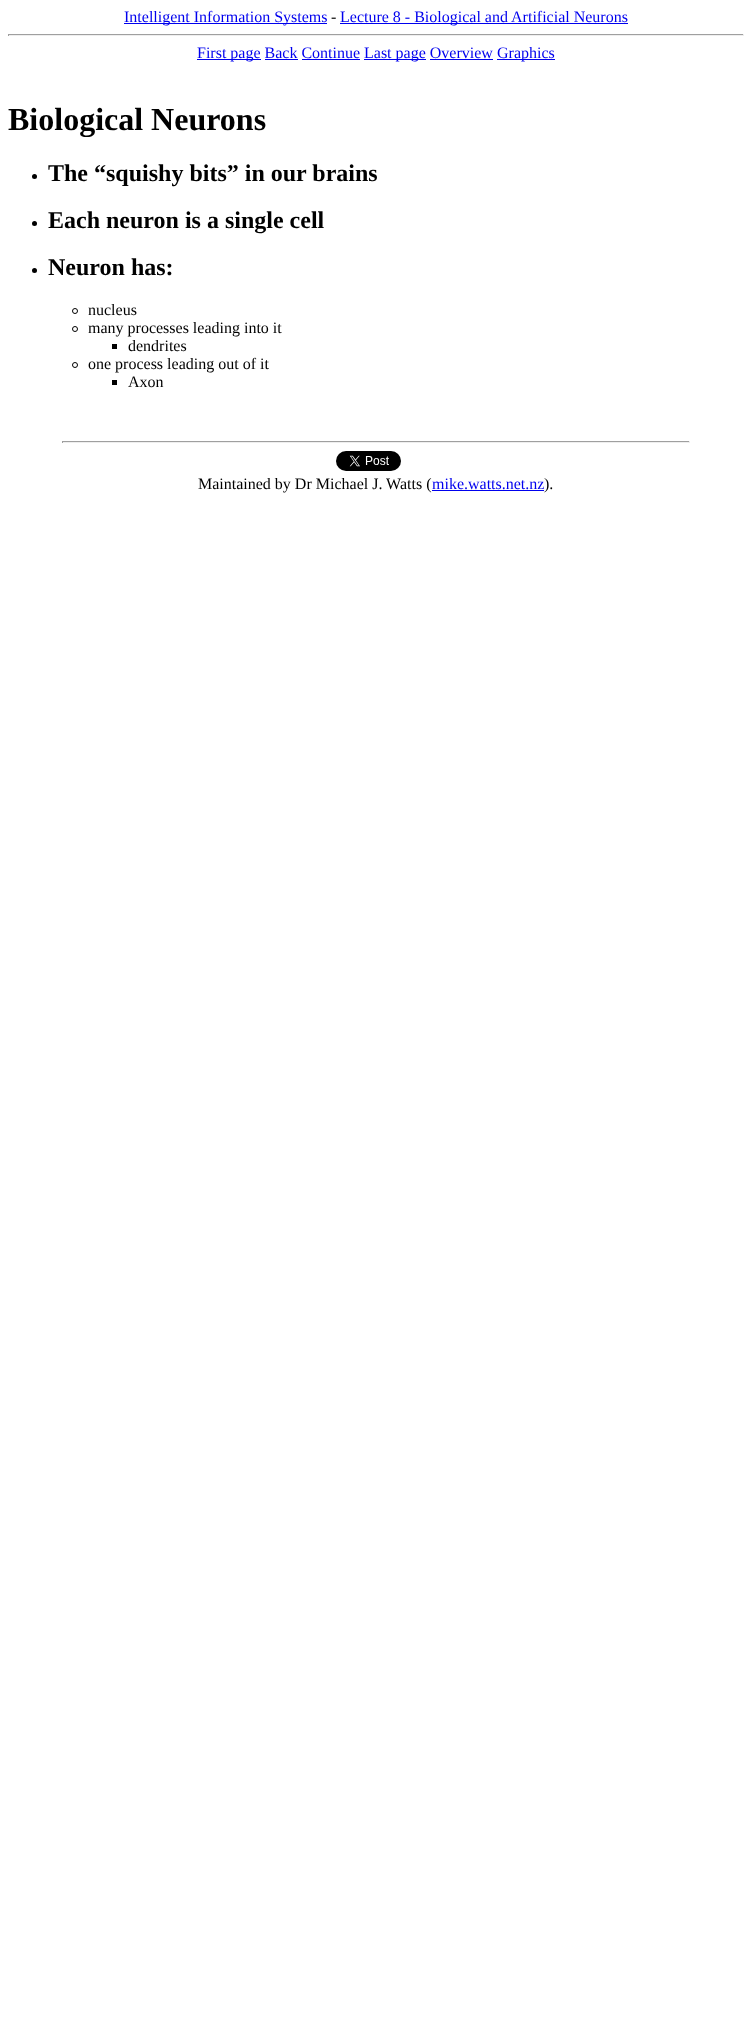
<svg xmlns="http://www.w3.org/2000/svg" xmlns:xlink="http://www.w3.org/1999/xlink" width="752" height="2029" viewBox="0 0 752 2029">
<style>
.cls-1{font:16px Liberation Serif;fill:#0000ee}
.cls-2{font:16px Liberation Serif;fill:#000000}
.cls-3{font:bold 32px Liberation Serif;fill:#000000}
.cls-4{font:bold 24px Liberation Serif;fill:#000000}
</style>
<rect width="100%" height="100%" fill="#ffffff"/>
<rect fill="#0000ee" x="124" y="23" width="203" height="1"/>
<rect fill="#0000ee" x="340" y="23" width="288" height="1"/>
<rect fill="#9f9f9f" x="8" y="34" width="736" height="1"/>
<rect fill="#eeeeee" x="743" y="34" width="1" height="2"/>
<rect fill="#eeeeee" x="8" y="35" width="736" height="1"/>
<rect fill="#9f9f9f" x="8" y="34" width="1" height="2"/>
<rect fill="#0000ee" x="197" y="59" width="64" height="1"/>
<rect fill="#0000ee" x="364" y="59" width="62" height="1"/>
<rect fill="#0000ee" x="497" y="59" width="58" height="1"/>
<rect fill="#0000ee" x="265" y="59" width="33" height="1"/>
<rect fill="#0000ee" x="302" y="59" width="58" height="1"/>
<rect fill="#0000ee" x="430" y="59" width="63" height="1"/>
<circle fill="#000000" cx="34.5" cy="176.5" r="2.5"/>
<circle fill="#000000" cx="34.5" cy="223.5" r="2.5"/>
<circle fill="#000000" cx="34.5" cy="270.5" r="2.5"/>
<circle fill="none" stroke="#000000" cx="75" cy="311" r="2.5"/>
<circle fill="none" stroke="#000000" cx="75" cy="329" r="2.5"/>
<rect fill="#000000" x="112" y="344" width="5" height="5"/>
<circle fill="none" stroke="#000000" cx="75" cy="365" r="2.5"/>
<rect fill="#000000" x="112" y="380" width="5" height="5"/>
<rect fill="#9f9f9f" x="62" y="441" width="628" height="1"/>
<rect fill="#eeeeee" x="689" y="441" width="1" height="2"/>
<rect fill="#eeeeee" x="62" y="442" width="628" height="1"/>
<rect fill="#9f9f9f" x="62" y="441" width="1" height="2"/>
<image xlink:href="image0.png" x="336" y="451" width="65" height="20"/>
<rect fill="#0000ee" x="432" y="490" width="112" height="1"/>
<text class="cls-1" x="124" y="22">Intelligent Information Systems</text>
<text class="cls-2" x="331" y="22">-</text>
<text class="cls-1" x="340" y="22">Lecture 8 - Biological and Artificial Neurons</text>
<text class="cls-1" x="197" y="58">First page Back Continue</text>
<text class="cls-1" x="364" y="58">Last page Overview</text>
<text class="cls-1" x="497" y="58">Graphics</text>
<text class="cls-3" x="8" y="130">Biological Neurons</text>
<text class="cls-4"><tspan x="48" y="181">The “squishy bits” in our brains</tspan><tspan x="48" y="228">Each neuron is a single cell</tspan><tspan x="48" y="275">Neuron has:</tspan></text>
<text class="cls-2"><tspan x="88" y="315">nucleus</tspan><tspan x="88" y="333">many processes leading into it</tspan></text>
<text class="cls-2" x="128" y="351">dendrites</text>
<text class="cls-2" x="88" y="369">one process leading out of it</text>
<text class="cls-2" x="128" y="387">Axon</text>
<text class="cls-2" x="198" y="489">Maintained by Dr Michael J. Watts (</text>
<text class="cls-1" x="432" y="489">mike.watts.net.nz</text>
<text class="cls-2" x="544" y="489">).</text>
</svg>
